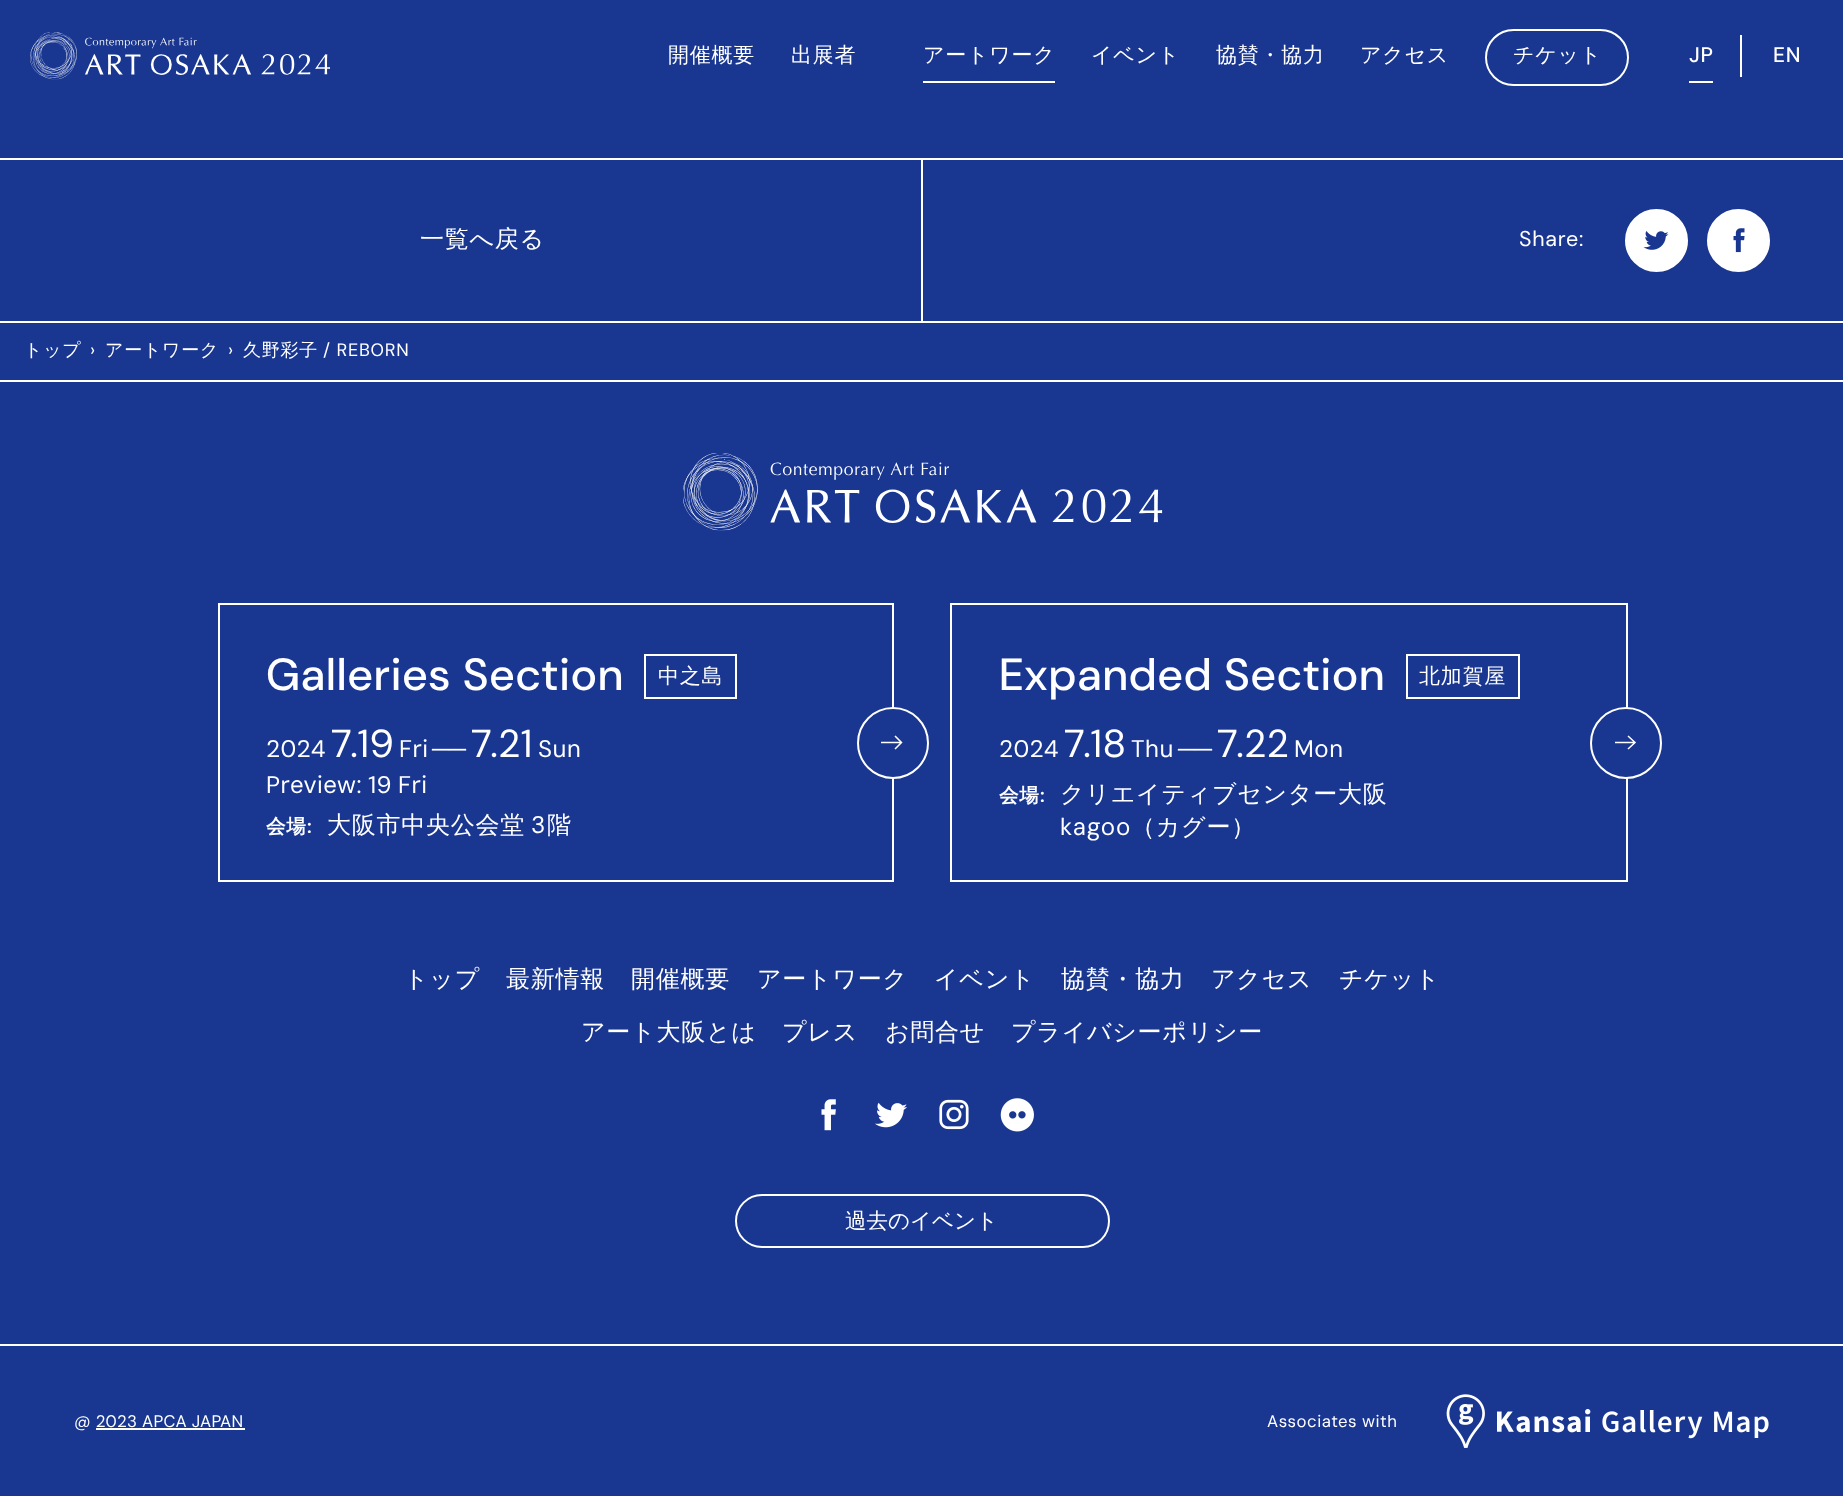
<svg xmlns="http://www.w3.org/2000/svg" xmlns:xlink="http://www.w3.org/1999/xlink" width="1843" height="1496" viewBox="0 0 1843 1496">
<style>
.cls-1{font:500 21px WenQuanYi Zen Hei;letter-spacing:0.75px;fill:#ffffff}
.cls-2{font:500 21px 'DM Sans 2';letter-spacing:0.75px;fill:#ffffff}
.cls-3{font:500 24px WenQuanYi Zen Hei;letter-spacing:0.75px;fill:#ffffff}
.cls-4{font:21.5px DM Sans;letter-spacing:0.75px;fill:#ffffff}
.cls-5{font:500 18px WenQuanYi Zen Hei;letter-spacing:0.75px;fill:#ffffff}
.cls-6{font:18px 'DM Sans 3';letter-spacing:0.75px;fill:#ffffff}
.cls-7{font:500 45px DM Sans;letter-spacing:0.9px;fill:#ffffff}
.cls-8{font:24px 'DM Sans 3';letter-spacing:0.5px;fill:#ffffff}
.cls-9{font:39px 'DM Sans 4';letter-spacing:0.5px;fill:#ffffff}
.cls-10{font:24px Liberation Sans;fill:#ffffff}
.cls-11{font:bold 19.5px WenQuanYi Zen Hei;letter-spacing:0.75px;fill:#ffffff}
.cls-12{font:600 19.5px DM Sans;letter-spacing:0.75px;fill:#ffffff}
.cls-13{font:24px 'DM Sans 3';letter-spacing:0.75px;fill:#ffffff}
.cls-14{font:500 21.5px WenQuanYi Zen Hei;fill:#ffffff}
.cls-15{font:16.75px 'DM Sans 2';letter-spacing:0.3px;fill:#ffffff}
.cls-16{font:16.75px 'DM Sans 2';letter-spacing:0.5px;fill:#ffffff}
</style>
<rect width="100%" height="100%" fill="#193791"/>
<image xlink:href="image0.png" x="30" y="32" width="300" height="48"/>
<rect fill="#ffffff" x="923" y="81" width="132" height="2"/>
<rect fill="none" stroke="#ffffff" stroke-width="2" x="1486" y="30" width="142" height="55" rx="27.5"/>
<rect fill="#ffffff" x="1740" y="35" width="2" height="42"/>
<rect fill="#ffffff" x="1689" y="81" width="24" height="2"/>
<rect fill="#ffffff" x="0" y="158" width="1843" height="2"/>
<rect fill="#ffffff" x="921" y="159" width="2" height="162"/>
<circle fill="#ffffff" stroke="#ffffff" stroke-width="2" cx="1656.5" cy="240.5" r="30.5"/>
<image xlink:href="image1.png" x="1643" y="231" width="26" height="19"/>
<circle fill="#ffffff" stroke="#ffffff" stroke-width="2" cx="1738.5" cy="240.5" r="30.5"/>
<image xlink:href="image2.png" x="1733" y="228" width="12" height="25"/>
<rect fill="#ffffff" x="0" y="321" width="1843" height="2"/>
<rect fill="#ffffff" x="0" y="380" width="1843" height="2"/>
<image xlink:href="image3.png" x="683" y="453" width="480" height="78"/>
<rect fill="none" stroke="#ffffff" stroke-width="2" x="219" y="604" width="674" height="277"/>
<rect fill="none" stroke="#ffffff" stroke-width="2" x="645" y="655" width="91" height="43"/>
<circle fill="#193791" stroke="#ffffff" stroke-width="2" cx="893" cy="743" r="35"/>
<path fill="none" stroke="#ffffff" stroke-width="1.5" d="M900.5 742.5H881M895 736L901.5 742.5L895 749"/>
<rect fill="none" stroke="#ffffff" stroke-width="2" x="951" y="604" width="676" height="277"/>
<rect fill="none" stroke="#ffffff" stroke-width="2" x="1407" y="655" width="112" height="43"/>
<circle fill="#193791" stroke="#ffffff" stroke-width="2" cx="1626" cy="743" r="35"/>
<path fill="none" stroke="#ffffff" stroke-width="1.5" d="M1634 742.5H1615M1628 736L1635 742.5L1628 749"/>
<rect fill="#ffffff" x="0" y="1344" width="1843" height="2"/>
<image xlink:href="image4.png" x="821" y="1099" width="15" height="32"/>
<image xlink:href="image5.png" x="875" y="1102" width="32" height="26"/>
<image xlink:href="image6.png" x="939" y="1099" width="30" height="31"/>
<image xlink:href="image7.png" x="1000" y="1098" width="34" height="34"/>
<rect fill="none" stroke="#ffffff" stroke-width="2" x="736" y="1195" width="373" height="52" rx="26"/>
<rect fill="#ffffff" x="96" y="1428" width="149" height="2"/>
<image xlink:href="image8.png" x="1446" y="1394" width="323" height="54"/>
<text class="cls-1" x="668" y="62">開催概要</text>
<text class="cls-1" x="791" y="62">出展者</text>
<text class="cls-1" x="923" y="62">アートワーク</text>
<text class="cls-1" x="1091" y="62">イベント</text>
<text class="cls-1" x="1216" y="62">協賛・協力</text>
<text class="cls-1" x="1360" y="62">アクセス</text>
<text class="cls-1" x="1513" y="62">チケット</text>
<text class="cls-2" x="1689" y="62">JP</text>
<text class="cls-2" x="1773" y="62">EN</text>
<text class="cls-3" x="420" y="247">一覧へ戻る</text>
<text class="cls-4" x="1519" y="246">Share:</text>
<text class="cls-5" x="24" y="356">トップ</text>
<text class="cls-6" x="90" y="356">›</text>
<text class="cls-5" x="105" y="356">アートワーク</text>
<text class="cls-6" x="228" y="356">›</text>
<text class="cls-5" x="243" y="356">久野彩子</text>
<text class="cls-6" x="323" y="356">/ REBORN</text>
<text class="cls-7" x="266" y="690">Galleries Section</text>
<text class="cls-1" x="658" y="683">中之島</text>
<text class="cls-8" x="266" y="757">2024</text>
<text class="cls-9" x="331" y="757">7.19</text>
<text class="cls-8" x="399" y="757">Fri</text>
<text class="cls-10" x="432" y="757">──</text>
<text class="cls-9" x="471" y="757">7.21</text>
<text class="cls-8" x="538" y="757">Sun</text>
<text class="cls-8" x="266" y="793" word-spacing="-1">Preview: 19 Fri</text>
<text class="cls-11" x="266" y="833">会場</text>
<text class="cls-12" x="307" y="833">:</text>
<text class="cls-3" x="327" y="833">大阪市中央公会堂</text>
<text class="cls-13" x="531" y="833">3</text>
<text class="cls-3" x="547" y="833">階</text>
<text class="cls-7" x="999" y="690">Expanded Section</text>
<text class="cls-1" x="1419" y="683">北加賀屋</text>
<text class="cls-8" x="999" y="757">2024</text>
<text class="cls-9" x="1064" y="757">7.18</text>
<text class="cls-8" x="1131" y="757">Thu</text>
<text class="cls-10" x="1178" y="757">──</text>
<text class="cls-9" x="1217" y="757">7.22</text>
<text class="cls-8" x="1294" y="757">Mon</text>
<text class="cls-11" x="999" y="802">会場</text>
<text class="cls-12" x="1040" y="802">:</text>
<text class="cls-3" x="1060" y="802">クリエイティブセンター大阪</text>
<text class="cls-13" x="1060" y="835">kagoo</text>
<text class="cls-3" x="1131" y="835">（カグー）</text>
<text class="cls-3" x="404" y="987">トップ</text>
<text class="cls-3" x="506" y="987">最新情報</text>
<text class="cls-3" x="631" y="987">開催概要</text>
<text class="cls-3" x="757" y="987">アートワーク</text>
<text class="cls-3" x="934" y="987">イベント</text>
<text class="cls-3" x="1061" y="987">協賛・協力</text>
<text class="cls-3" x="1211" y="987">アクセス</text>
<text class="cls-3" x="1339" y="987">チケット</text>
<text class="cls-3" x="581" y="1040">アート大阪とは</text>
<text class="cls-3" x="782" y="1040">プレス</text>
<text class="cls-3" x="885" y="1040">お問合せ</text>
<text class="cls-3" x="1011" y="1040">プライバシーポリシー</text>
<text class="cls-14" x="845" y="1228">過去のイベント</text>
<text class="cls-15" x="74" y="1427">@ 2023 APCA JAPAN</text>
<text class="cls-16" x="1267" y="1427">Associates with</text>
</svg>
